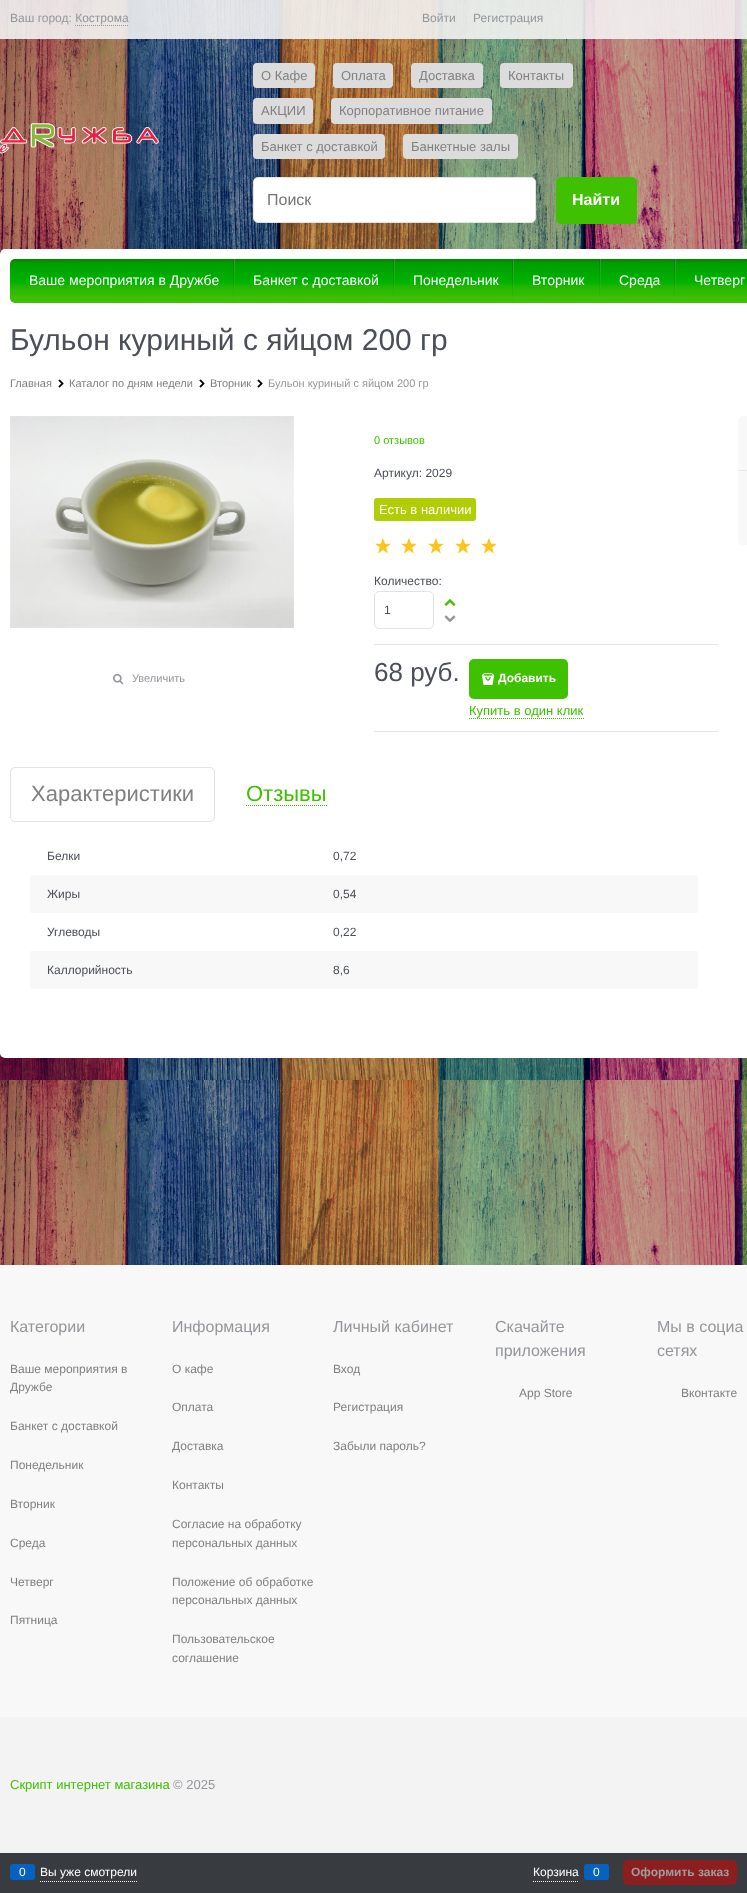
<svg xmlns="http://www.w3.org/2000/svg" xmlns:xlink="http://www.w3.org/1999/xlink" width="747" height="1893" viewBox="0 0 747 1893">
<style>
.cls-1{font:12px Liberation Sans;fill:#94969b}
.cls-2{font:13px Liberation Sans;fill:#808080}
.cls-3{font:16px Liberation Sans;fill:#757575}
.cls-4{font:bold 16px Liberation Sans;fill:#ffffff}
.cls-5{font:14px Liberation Sans;fill:#ffffff}
.cls-6{font:30px Liberation Sans;fill:#4b4f58}
.cls-7{font:11px Liberation Sans;fill:#808080}
.cls-8{font:11px Liberation Sans;fill:#94969b}
.cls-9{font:11px Liberation Sans;fill:#3fc001}
.cls-10{font:12px Liberation Sans;fill:#4b4f58}
.cls-11{font:13px Liberation Sans;fill:#ffffff}
.cls-12{font:26px Liberation Sans;fill:#4b4f58}
.cls-13{font:bold 12px Liberation Sans;fill:#ffffff}
.cls-14{font:13px Liberation Sans;fill:#3fc001}
.cls-15{font:22px Liberation Sans;fill:#808080}
.cls-16{font:22px Liberation Sans;fill:#3fc001}
.cls-17{font:16px Liberation Sans;fill:#94969b}
.cls-18{font:12px Liberation Sans;fill:#808080}
.cls-19{font:13px Liberation Sans;fill:#94969b}
.cls-20{font:12px Liberation Sans;fill:#ffffff}
.cls-21{font:bold 12px Liberation Sans;fill:#9c9ea0}
</style>
<defs>
<linearGradient id="g1" gradientUnits="userSpaceOnUse" x1="485" y1="259" x2="485" y2="303"><stop offset="0" stop-color="#008400"/><stop offset="0.08" stop-color="#019a01"/><stop offset="0.11" stop-color="#009e00"/><stop offset="0.51" stop-color="#00b201"/><stop offset="0.54" stop-color="#04b300"/><stop offset="0.62" stop-color="#20b501"/><stop offset="0.65" stop-color="#21b700"/><stop offset="0.7" stop-color="#2eb802"/><stop offset="0.78" stop-color="#2dbc00"/><stop offset="0.84" stop-color="#3abc00"/><stop offset="0.86" stop-color="#3ebf00"/><stop offset="1" stop-color="#3fc001"/></linearGradient>
<linearGradient id="g2" gradientUnits="userSpaceOnUse" x1="235" y1="259" x2="235" y2="303"><stop offset="0" stop-color="#ffffff" stop-opacity="0.14"/><stop offset="0.72" stop-color="#ffffff" stop-opacity="0.02"/><stop offset="1" stop-color="#ffffff" stop-opacity="0"/></linearGradient>
<linearGradient id="g3" gradientUnits="userSpaceOnUse" x1="234" y1="259" x2="234" y2="303"><stop offset="0" stop-color="#393939" stop-opacity="0.39"/><stop offset="0.17" stop-color="#393939" stop-opacity="0.33"/><stop offset="0.61" stop-color="#393939" stop-opacity="0.12"/><stop offset="0.96" stop-color="#393939" stop-opacity="0.01"/><stop offset="0.98" stop-color="#ffffff" stop-opacity="0.01"/><stop offset="1" stop-color="#ffffff" stop-opacity="0"/></linearGradient>
<linearGradient id="g4" gradientUnits="userSpaceOnUse" x1="395" y1="259" x2="395" y2="303"><stop offset="0" stop-color="#ffffff" stop-opacity="0.14"/><stop offset="0.72" stop-color="#ffffff" stop-opacity="0.02"/><stop offset="1" stop-color="#ffffff" stop-opacity="0"/></linearGradient>
<linearGradient id="g5" gradientUnits="userSpaceOnUse" x1="394" y1="259" x2="394" y2="303"><stop offset="0" stop-color="#393939" stop-opacity="0.39"/><stop offset="0.17" stop-color="#393939" stop-opacity="0.33"/><stop offset="0.61" stop-color="#393939" stop-opacity="0.12"/><stop offset="0.96" stop-color="#393939" stop-opacity="0.01"/><stop offset="0.98" stop-color="#ffffff" stop-opacity="0.01"/><stop offset="1" stop-color="#ffffff" stop-opacity="0"/></linearGradient>
<linearGradient id="g6" gradientUnits="userSpaceOnUse" x1="514" y1="259" x2="514" y2="303"><stop offset="0" stop-color="#ffffff" stop-opacity="0.14"/><stop offset="0.72" stop-color="#ffffff" stop-opacity="0.02"/><stop offset="1" stop-color="#ffffff" stop-opacity="0"/></linearGradient>
<linearGradient id="g7" gradientUnits="userSpaceOnUse" x1="513" y1="259" x2="513" y2="303"><stop offset="0" stop-color="#393939" stop-opacity="0.39"/><stop offset="0.17" stop-color="#393939" stop-opacity="0.33"/><stop offset="0.61" stop-color="#393939" stop-opacity="0.12"/><stop offset="0.96" stop-color="#393939" stop-opacity="0.01"/><stop offset="0.98" stop-color="#ffffff" stop-opacity="0.01"/><stop offset="1" stop-color="#ffffff" stop-opacity="0"/></linearGradient>
<linearGradient id="g8" gradientUnits="userSpaceOnUse" x1="601" y1="259" x2="601" y2="303"><stop offset="0" stop-color="#ffffff" stop-opacity="0.14"/><stop offset="0.72" stop-color="#ffffff" stop-opacity="0.02"/><stop offset="1" stop-color="#ffffff" stop-opacity="0"/></linearGradient>
<linearGradient id="g9" gradientUnits="userSpaceOnUse" x1="600" y1="259" x2="600" y2="303"><stop offset="0" stop-color="#393939" stop-opacity="0.39"/><stop offset="0.17" stop-color="#393939" stop-opacity="0.33"/><stop offset="0.61" stop-color="#393939" stop-opacity="0.12"/><stop offset="0.96" stop-color="#393939" stop-opacity="0.01"/><stop offset="0.98" stop-color="#ffffff" stop-opacity="0.01"/><stop offset="1" stop-color="#ffffff" stop-opacity="0"/></linearGradient>
<linearGradient id="g10" gradientUnits="userSpaceOnUse" x1="676" y1="259" x2="676" y2="303"><stop offset="0" stop-color="#ffffff" stop-opacity="0.14"/><stop offset="0.72" stop-color="#ffffff" stop-opacity="0.02"/><stop offset="1" stop-color="#ffffff" stop-opacity="0"/></linearGradient>
<linearGradient id="g11" gradientUnits="userSpaceOnUse" x1="675" y1="259" x2="675" y2="303"><stop offset="0" stop-color="#393939" stop-opacity="0.39"/><stop offset="0.17" stop-color="#393939" stop-opacity="0.33"/><stop offset="0.61" stop-color="#393939" stop-opacity="0.12"/><stop offset="0.96" stop-color="#393939" stop-opacity="0.01"/><stop offset="0.98" stop-color="#ffffff" stop-opacity="0.01"/><stop offset="1" stop-color="#ffffff" stop-opacity="0"/></linearGradient>
</defs>
<rect width="100%" height="100%" fill="#ffffff"/>
<image xlink:href="image0.png" x="0" y="0" width="747" height="1265"/>
<rect fill="#000000" fill-opacity="0.25" x="0" y="0" width="747" height="249"/>
<rect fill="#f3f3f3" fill-opacity="0.9" x="0" y="0" width="747" height="39"/>
<path fill="none" stroke="#94969b" stroke-dasharray="1 1" d="M75 25.5H129"/>
<image xlink:href="image1.png" x="0" y="123" width="159" height="31"/>
<rect fill="#dcdcdc" x="253" y="63" width="62" height="25" rx="4"/>
<rect fill="#dcdcdc" x="333" y="63" width="60" height="25" rx="4"/>
<rect fill="#dcdcdc" x="411" y="63" width="72" height="25" rx="4"/>
<rect fill="#dcdcdc" x="500" y="63" width="73" height="25" rx="4"/>
<rect fill="#dcdcdc" x="253" y="98" width="60" height="26" rx="4"/>
<rect fill="#dcdcdc" x="331" y="98" width="161" height="26" rx="4"/>
<rect fill="#dcdcdc" x="253" y="134" width="132" height="25" rx="4"/>
<rect fill="#dcdcdc" x="403" y="134" width="115" height="25" rx="4"/>
<rect fill="#ffffff" stroke="#e2e3e4" x="253.5" y="177.5" width="282" height="45" rx="4.5"/>
<rect fill="#3fc001" x="556" y="177" width="81" height="47" rx="5"/>
<rect fill="#000000" fill-opacity="0.25" x="0" y="249" width="747" height="1016"/>
<rect fill="#ffffff" x="0" y="249" width="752" height="809" rx="5"/>
<rect fill="url(#g1)" x="10" y="259" width="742" height="44" rx="5"/>
<rect fill="url(#g2)" x="234" y="259" width="1" height="31"/>
<rect fill="url(#g3)" x="233" y="259" width="1" height="44"/>
<rect fill="url(#g4)" x="394" y="259" width="1" height="31"/>
<rect fill="url(#g5)" x="393" y="259" width="1" height="44"/>
<rect fill="url(#g6)" x="513" y="259" width="1" height="31"/>
<rect fill="url(#g7)" x="512" y="259" width="1" height="44"/>
<rect fill="url(#g8)" x="600" y="259" width="1" height="31"/>
<rect fill="url(#g9)" x="599" y="259" width="1" height="44"/>
<rect fill="url(#g10)" x="675" y="259" width="1" height="31"/>
<rect fill="url(#g11)" x="674" y="259" width="1" height="44"/>
<image xlink:href="image2.png" x="58" y="379" width="6" height="9"/>
<image xlink:href="image2.png" x="199" y="379" width="6" height="9"/>
<image xlink:href="image2.png" x="257" y="379" width="6" height="9"/>
<image xlink:href="image3.png" x="10" y="416" width="284" height="212"/>
<image xlink:href="image4.png" x="113" y="673" width="11" height="12"/>
<rect fill="#b1cd03" x="374" y="498" width="102" height="23" rx="3"/>
<image xlink:href="image5.png" x="375" y="538" width="16" height="16"/>
<image xlink:href="image5.png" x="401" y="538" width="16" height="16"/>
<image xlink:href="image5.png" x="428" y="538" width="16" height="16"/>
<image xlink:href="image5.png" x="455" y="538" width="16" height="16"/>
<image xlink:href="image5.png" x="481" y="538" width="16" height="16"/>
<rect fill="none" stroke="#e2e3e4" x="374.5" y="591.5" width="59" height="37" rx="4.5"/>
<image xlink:href="image6.png" x="444" y="599" width="12" height="7"/>
<image xlink:href="image7.png" x="444" y="615" width="12" height="8"/>
<rect fill="#e2e3e4" x="374" y="644" width="344" height="1"/>
<rect fill="#e2e3e4" x="374" y="731" width="344" height="1"/>
<rect fill="#3fc001" x="469" y="659" width="99" height="40" rx="5"/>
<image xlink:href="image8.png" x="482" y="673" width="12" height="12"/>
<path fill="none" stroke="#3fc001" stroke-dasharray="1 1" d="M469 718.5H584"/>
<rect fill="none" stroke="#e2e3e4" x="10.5" y="767.5" width="204" height="54" rx="4.5"/>
<path fill="none" stroke="#3fc001" stroke-dasharray="1 1" d="M246 805.5H327"/>
<rect fill="#f8f8f8" x="30" y="875" width="668" height="38"/>
<rect fill="#f8f8f8" x="30" y="951" width="668" height="38"/>
<rect fill="#f8f8f8" x="738" y="416" width="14" height="129" rx="5"/>
<rect fill="#e9e9e9" x="738" y="470" width="9" height="1"/>
<rect fill="#f8f8f8" x="0" y="1265" width="747" height="452"/>
<rect fill="#f3f3f3" x="0" y="1717" width="747" height="136"/>
<rect fill="#383c40" x="0" y="1853" width="747" height="40"/>
<path fill="none" stroke="#ffffff" stroke-dasharray="1 1" d="M40 1881.5H137"/>
<rect fill="#0662c1" x="10" y="1864" width="25" height="16" rx="3"/>
<path fill="none" stroke="#ffffff" stroke-dasharray="1 1" d="M533 1881.5H579"/>
<rect fill="#0662c1" x="584" y="1864" width="25" height="16" rx="3"/>
<rect fill="#8d1e20" x="623" y="1860" width="114" height="25" rx="5"/>
<text class="cls-1" x="10" y="22">Ваш город: Кострома</text>
<text class="cls-1" x="422" y="22">Войти</text>
<text class="cls-1" x="473" y="22">Регистрация</text>
<text class="cls-2" x="261" y="80">О Кафе</text>
<text class="cls-2" x="341" y="80">Оплата</text>
<text class="cls-2" x="419" y="80">Доставка</text>
<text class="cls-2" x="508" y="80">Контакты</text>
<text class="cls-2" x="261" y="115">АКЦИИ</text>
<text class="cls-2" x="339" y="115">Корпоративное питание</text>
<text class="cls-2" x="261" y="151">Банкет с доставкой</text>
<text class="cls-2" x="411" y="151">Банкетные залы</text>
<text class="cls-3" x="267" y="205">Поиск</text>
<text class="cls-4" x="572" y="205">Найти</text>
<text class="cls-5" x="29" y="285">Ваше мероприятия в Дружбе</text>
<text class="cls-5" x="253" y="285">Банкет с доставкой</text>
<text class="cls-5" x="413" y="285">Понедельник</text>
<text class="cls-5" x="532" y="285">Вторник</text>
<text class="cls-5" x="619" y="285">Среда</text>
<text class="cls-5" x="694" y="285">Четверг</text>
<text class="cls-6" x="10" y="350">Бульон куриный с яйцом 200 гр</text>
<text class="cls-7" x="10" y="387">Главная</text>
<text class="cls-7" x="69" y="387">Каталог по дням недели</text>
<text class="cls-7" x="210" y="387">Вторник</text>
<text class="cls-8" x="268" y="387">Бульон куриный с яйцом 200 гр</text>
<text class="cls-8" x="132" y="682">Увеличить</text>
<text class="cls-9" x="374" y="444">0 отзывов</text>
<text class="cls-10" x="374" y="477">Артикул: 2029</text>
<text class="cls-11" x="379" y="514">Есть в наличии</text>
<text class="cls-10" x="374" y="585">Количество:</text>
<text class="cls-10" x="384" y="614">1</text>
<text class="cls-12" x="374" y="681">68 руб.</text>
<text class="cls-13" x="498" y="682">Добавить</text>
<text class="cls-14" x="469" y="715">Купить в один клик</text>
<text class="cls-15" x="31" y="801">Характеристики</text>
<text class="cls-16" x="246" y="801">Отзывы</text>
<text class="cls-10" x="47" y="860">Белки</text>
<text class="cls-10" x="333" y="860">0,72</text>
<text class="cls-10" x="47" y="898">Жиры</text>
<text class="cls-10" x="333" y="898">0,54</text>
<text class="cls-10" x="47" y="936">Углеводы</text>
<text class="cls-10" x="333" y="936">0,22</text>
<text class="cls-10" x="47" y="974">Каллорийность</text>
<text class="cls-10" x="333" y="974">8,6</text>
<text class="cls-17" x="10" y="1332">Категории</text>
<text class="cls-18"><tspan x="10" y="1373">Ваше мероприятия в</tspan><tspan x="10" y="1391">Дружбе</tspan></text>
<text class="cls-18" x="10" y="1430">Банкет с доставкой</text>
<text class="cls-18" x="10" y="1469">Понедельник</text>
<text class="cls-18" x="10" y="1508">Вторник</text>
<text class="cls-18" x="10" y="1547">Среда</text>
<text class="cls-18" x="10" y="1586">Четверг</text>
<text class="cls-18" x="10" y="1624">Пятница</text>
<text class="cls-17" x="172" y="1332">Информация</text>
<text class="cls-18" x="172" y="1373">О кафе</text>
<text class="cls-18" x="172" y="1411">Оплата</text>
<text class="cls-18" x="172" y="1450">Доставка</text>
<text class="cls-18" x="172" y="1489">Контакты</text>
<text class="cls-18"><tspan x="172" y="1528">Согласие на обработку</tspan><tspan x="172" y="1547">персональных данных</tspan></text>
<text class="cls-18"><tspan x="172" y="1586">Положение об обработке</tspan><tspan x="172" y="1604">персональных данных</tspan></text>
<text class="cls-18"><tspan x="172" y="1643">Пользовательское</tspan><tspan x="172" y="1662">соглашение</tspan></text>
<text class="cls-17" x="333" y="1332">Личный кабинет</text>
<text class="cls-18" x="333" y="1373">Вход</text>
<text class="cls-18" x="333" y="1411">Регистрация</text>
<text class="cls-18" x="333" y="1450">Забыли пароль?</text>
<text class="cls-17"><tspan x="495" y="1332">Скачайте</tspan><tspan x="495" y="1356">приложения</tspan></text>
<text class="cls-18" x="519" y="1397">App Store</text>
<text class="cls-17"><tspan x="657" y="1332">Мы в социа</tspan><tspan x="657" y="1356">сетях</tspan></text>
<text class="cls-18" x="681" y="1397">Вконтакте</text>
<text class="cls-14" x="10" y="1789">Скрипт интернет магазина</text>
<text class="cls-19" x="173" y="1789">© 2025</text>
<text class="cls-20" x="19" y="1876">0</text>
<text class="cls-20" x="40" y="1876">Вы уже смотрели</text>
<text class="cls-20" x="533" y="1876">Корзина</text>
<text class="cls-20" x="593" y="1876">0</text>
<text class="cls-21" x="631" y="1876">Оформить заказ</text>
</svg>
